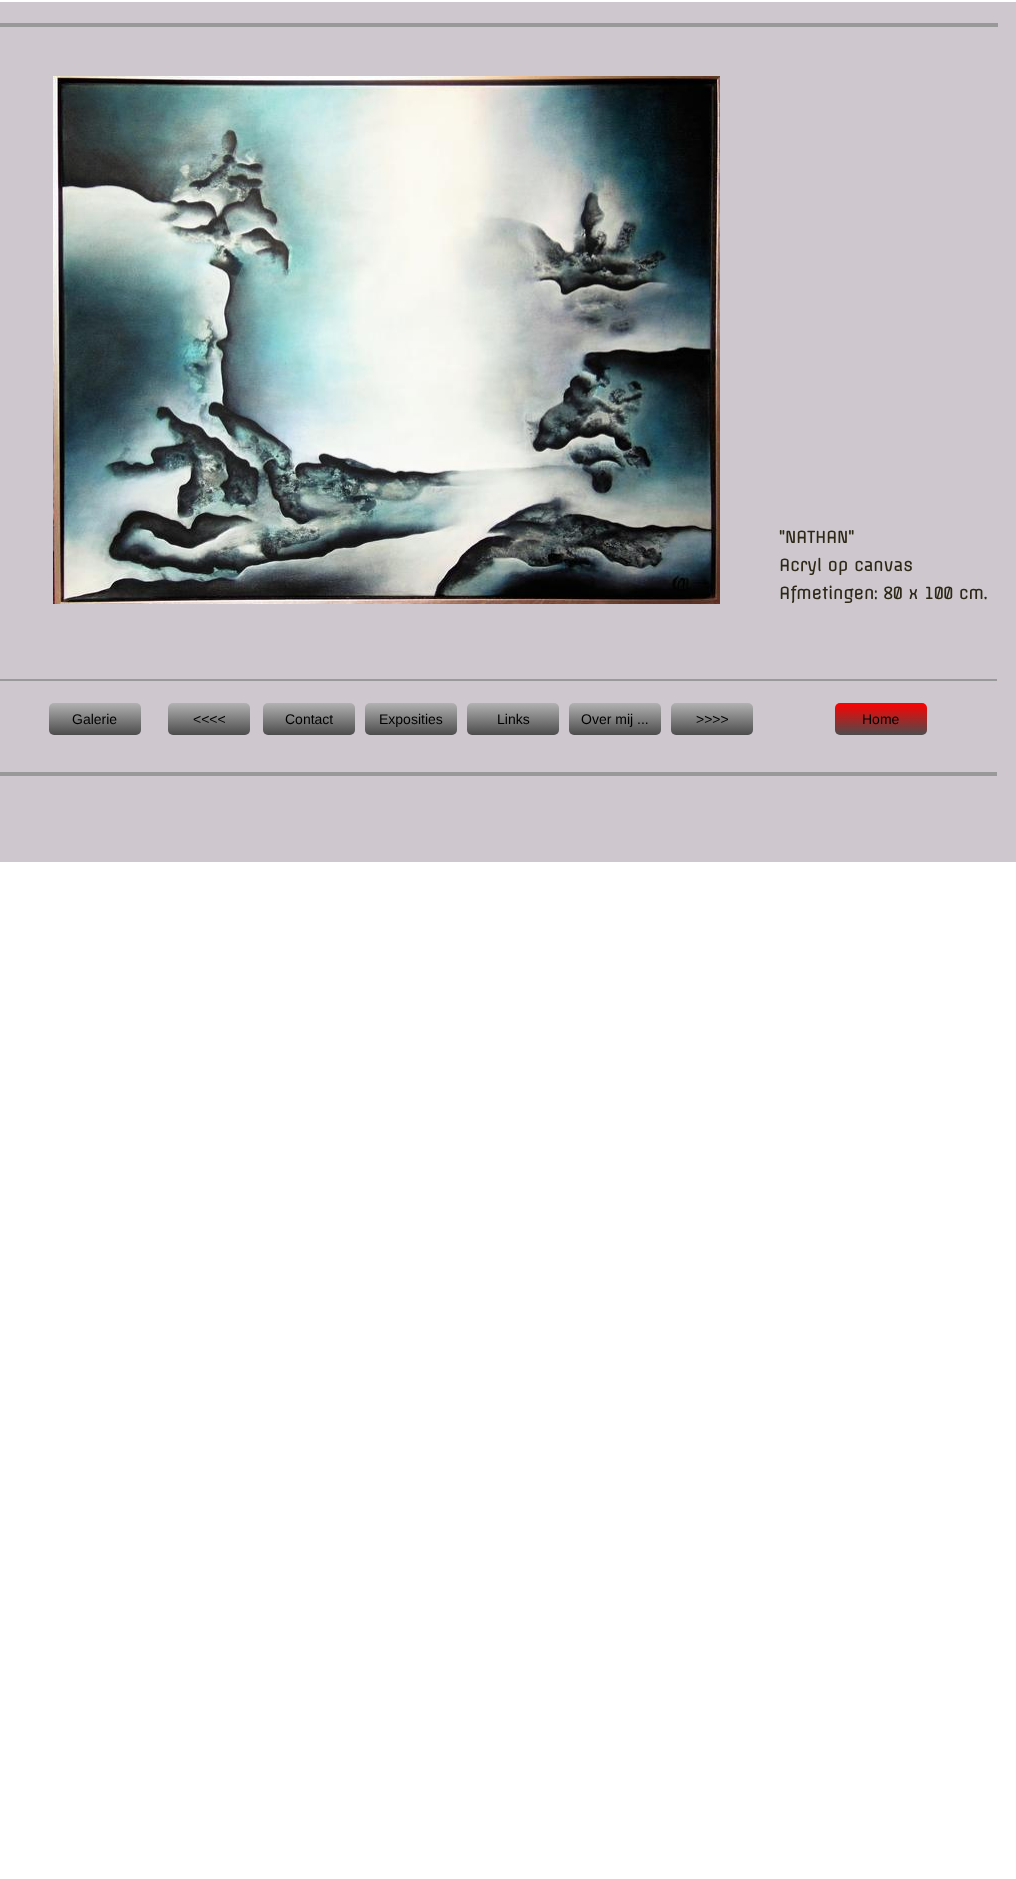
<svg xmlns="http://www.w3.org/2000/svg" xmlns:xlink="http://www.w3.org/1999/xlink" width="1016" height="1879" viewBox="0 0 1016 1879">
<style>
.cls-1{font:bold 16px Offside;fill:#2c2716}
.cls-2{font:14px Liberation Sans;fill:#000000}
</style>
<defs>
<linearGradient id="g1" gradientUnits="userSpaceOnUse" x1="95" y1="703" x2="95" y2="735"><stop offset="0" stop-color="#b2b2b2"/><stop offset="1" stop-color="#4c4c4c"/></linearGradient>
<linearGradient id="g2" gradientUnits="userSpaceOnUse" x1="209" y1="703" x2="209" y2="735"><stop offset="0" stop-color="#b2b2b2"/><stop offset="1" stop-color="#4c4c4c"/></linearGradient>
<linearGradient id="g3" gradientUnits="userSpaceOnUse" x1="309" y1="703" x2="309" y2="735"><stop offset="0" stop-color="#b2b2b2"/><stop offset="1" stop-color="#4c4c4c"/></linearGradient>
<linearGradient id="g4" gradientUnits="userSpaceOnUse" x1="411" y1="703" x2="411" y2="735"><stop offset="0" stop-color="#b2b2b2"/><stop offset="1" stop-color="#4c4c4c"/></linearGradient>
<linearGradient id="g5" gradientUnits="userSpaceOnUse" x1="513" y1="703" x2="513" y2="735"><stop offset="0" stop-color="#b2b2b2"/><stop offset="1" stop-color="#4c4c4c"/></linearGradient>
<linearGradient id="g6" gradientUnits="userSpaceOnUse" x1="615" y1="703" x2="615" y2="735"><stop offset="0" stop-color="#b2b2b2"/><stop offset="1" stop-color="#4c4c4c"/></linearGradient>
<linearGradient id="g7" gradientUnits="userSpaceOnUse" x1="712" y1="703" x2="712" y2="735"><stop offset="0" stop-color="#b2b2b2"/><stop offset="1" stop-color="#4c4c4c"/></linearGradient>
<linearGradient id="g8" gradientUnits="userSpaceOnUse" x1="881" y1="703" x2="881" y2="735"><stop offset="0" stop-color="#ff0000"/><stop offset="1" stop-color="#4c4c4c"/></linearGradient>
</defs>
<rect width="100%" height="100%" fill="#ffffff"/>
<rect fill="#cec8ce" x="0" y="2" width="1016" height="860"/>
<rect fill="#999999" x="0" y="23" width="998" height="4"/>
<image xlink:href="image0.png" x="53" y="76" width="667" height="528"/>
<rect fill="#999999" x="0" y="679" width="997" height="2"/>
<rect fill="url(#g1)" x="49" y="703" width="92" height="32" rx="5"/>
<rect fill="url(#g2)" x="168" y="703" width="82" height="32" rx="5"/>
<rect fill="url(#g3)" x="263" y="703" width="92" height="32" rx="5"/>
<rect fill="url(#g4)" x="365" y="703" width="92" height="32" rx="5"/>
<rect fill="url(#g5)" x="467" y="703" width="92" height="32" rx="5"/>
<rect fill="url(#g6)" x="569" y="703" width="92" height="32" rx="5"/>
<rect fill="url(#g7)" x="671" y="703" width="82" height="32" rx="5"/>
<rect fill="url(#g8)" x="835" y="703" width="92" height="32" rx="5"/>
<rect fill="#999999" x="0" y="772" width="997" height="4"/>
<text class="cls-1"><tspan x="779" y="543">"NATHAN"</tspan><tspan x="779" y="571">Acryl op canvas</tspan><tspan x="779" y="599">Afmetingen: 80 x 100 cm.</tspan></text>
<text class="cls-2" x="72" y="724">Galerie</text>
<text class="cls-2" x="193" y="724">&lt;&lt;&lt;&lt;</text>
<text class="cls-2" x="285" y="724">Contact</text>
<text class="cls-2" x="379" y="724">Exposities</text>
<text class="cls-2" x="497" y="724">Links</text>
<text class="cls-2" x="581" y="724">Over mij ...</text>
<text class="cls-2" x="696" y="724">&gt;&gt;&gt;&gt;</text>
<text class="cls-2" x="862" y="724">Home</text>
</svg>
